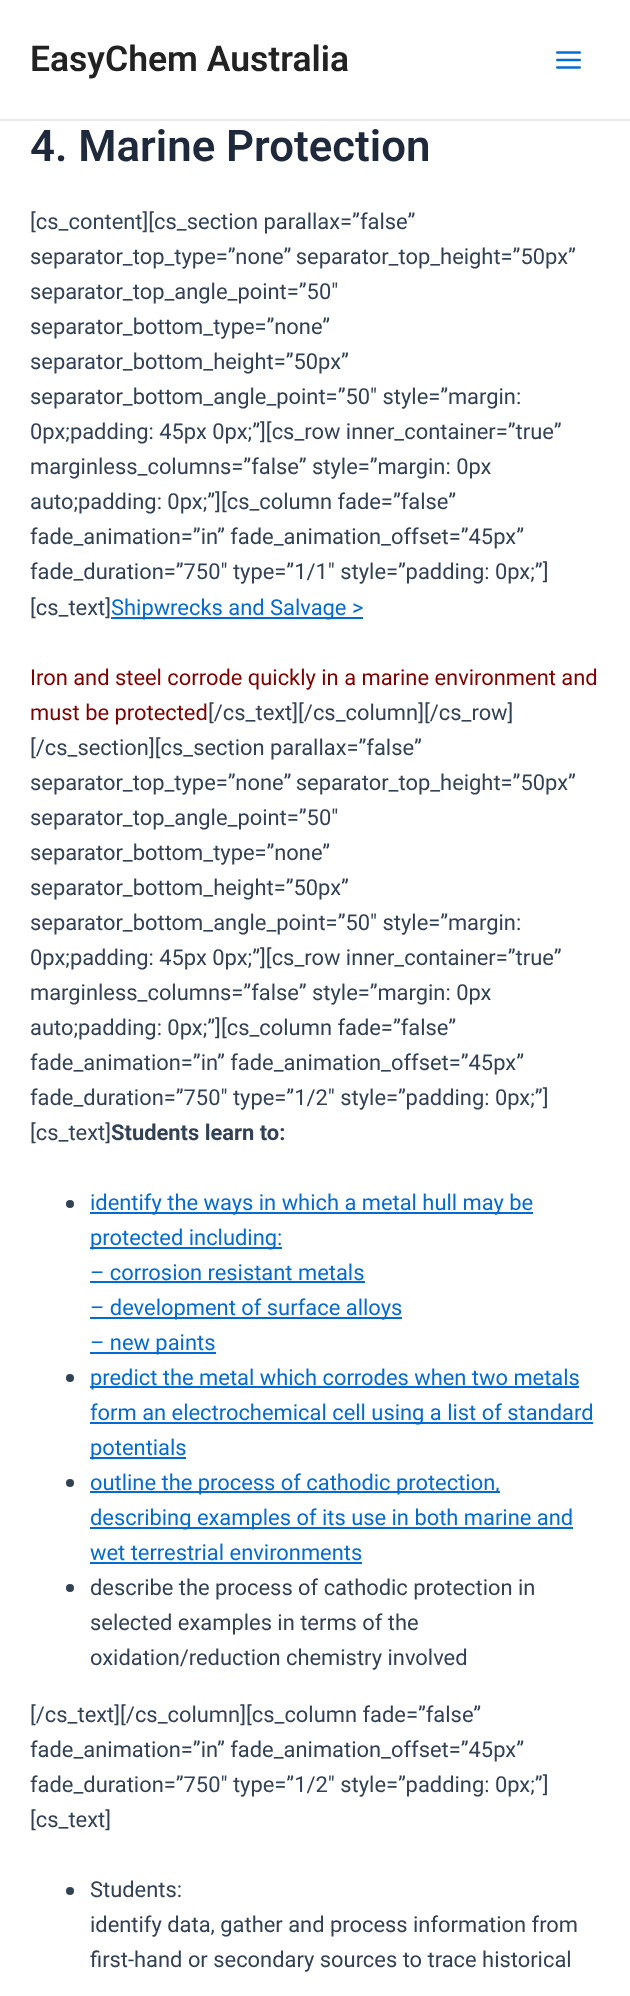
<svg xmlns="http://www.w3.org/2000/svg" xmlns:xlink="http://www.w3.org/1999/xlink" width="630" height="1996" viewBox="0 0 630 1996">
<style>
.cls-1{font:600 35.5px Roboto;fill:#222222}
.cls-2{font:600 43.75px Roboto;fill:#1e293b}
.cls-3{font:21.9px Roboto;fill:#334155}
.cls-4{font:21.9px Roboto;fill:#046bd2}
.cls-5{font:21.9px Roboto;fill:#800000}
.cls-6{font:bold 21.9px Roboto;fill:#334155}
</style>
<rect width="100%" height="100%" fill="#ffffff"/>
<rect fill="#eaeaea" x="0" y="119" width="630" height="2"/>
<image xlink:href="image0.png" x="556" y="51" width="25" height="18"/>
<rect fill="#046bd2" x="111" y="617" width="252" height="2"/>
<circle fill="#334155" cx="70" cy="1204" r="4"/>
<rect fill="#046bd2" x="90" y="1212" width="443" height="2"/>
<rect fill="#046bd2" x="90" y="1247" width="192" height="2"/>
<rect fill="#046bd2" x="90" y="1281" width="275" height="2"/>
<rect fill="#046bd2" x="90" y="1317" width="312" height="2"/>
<rect fill="#046bd2" x="90" y="1352" width="126" height="2"/>
<circle fill="#334155" cx="70" cy="1378" r="4"/>
<rect fill="#046bd2" x="90" y="1386" width="489" height="2"/>
<rect fill="#046bd2" x="90" y="1422" width="503" height="2"/>
<rect fill="#046bd2" x="90" y="1457" width="96" height="2"/>
<circle fill="#334155" cx="70" cy="1483" r="4"/>
<rect fill="#046bd2" x="90" y="1491" width="410" height="2"/>
<rect fill="#046bd2" x="90" y="1527" width="483" height="2"/>
<rect fill="#046bd2" x="90" y="1562" width="272" height="2"/>
<circle fill="#334155" cx="70" cy="1588" r="4"/>
<circle fill="#334155" cx="70" cy="1891" r="4"/>
<text class="cls-1" x="30" y="71">EasyChem Australia</text>
<text class="cls-2" x="30" y="161">4. Marine Protection</text>
<text class="cls-3"><tspan x="30" y="229">[cs_content][cs_section parallax=”false”</tspan><tspan x="30" y="264" word-spacing="-1">separator_top_type=”none” separator_top_height=”50px”</tspan><tspan x="30" y="299">separator_top_angle_point=”50″</tspan><tspan x="30" y="334">separator_bottom_type=”none”</tspan><tspan x="30" y="369">separator_bottom_height=”50px”</tspan><tspan x="30" y="404">separator_bottom_angle_point=”50″ style=”margin:</tspan><tspan x="30" y="439">0px;padding: 45px 0px;”][cs_row inner_container=”true”</tspan><tspan x="30" y="474">marginless_columns=”false” style=”margin: 0px</tspan><tspan x="30" y="509">auto;padding: 0px;”][cs_column fade=”false”</tspan><tspan x="30" y="544">fade_animation=”in” fade_animation_offset=”45px”</tspan><tspan x="30" y="579">fade_duration=”750″ type=”1/1″ style=”padding: 0px;”]</tspan><tspan x="30" y="615">[cs_text]</tspan></text>
<text class="cls-4" x="111" y="615">Shipwrecks and Salvage &gt;</text>
<text class="cls-5"><tspan x="30" y="685">Iron and steel corrode quickly in a marine environment and</tspan><tspan x="30" y="720">must be protected</tspan></text>
<text class="cls-3" x="208" y="720">[/cs_text][/cs_column][/cs_row]</text>
<text class="cls-3"><tspan x="30" y="755">[/cs_section][cs_section parallax=”false”</tspan><tspan x="30" y="790" word-spacing="-1">separator_top_type=”none” separator_top_height=”50px”</tspan><tspan x="30" y="825">separator_top_angle_point=”50″</tspan><tspan x="30" y="860">separator_bottom_type=”none”</tspan><tspan x="30" y="895">separator_bottom_height=”50px”</tspan><tspan x="30" y="930">separator_bottom_angle_point=”50″ style=”margin:</tspan><tspan x="30" y="965">0px;padding: 45px 0px;”][cs_row inner_container=”true”</tspan><tspan x="30" y="1000">marginless_columns=”false” style=”margin: 0px</tspan><tspan x="30" y="1035">auto;padding: 0px;”][cs_column fade=”false”</tspan><tspan x="30" y="1070">fade_animation=”in” fade_animation_offset=”45px”</tspan><tspan x="30" y="1105">fade_duration=”750″ type=”1/2″ style=”padding: 0px;”]</tspan><tspan x="30" y="1140">[cs_text]</tspan></text>
<text class="cls-6" x="111" y="1140">Students learn to:</text>
<text class="cls-4"><tspan x="90" y="1210">identify the ways in which a metal hull may be</tspan><tspan x="90" y="1245">protected including:</tspan><tspan x="90" y="1280">– corrosion resistant metals</tspan><tspan x="90" y="1315">– development of surface alloys</tspan><tspan x="90" y="1350">– new paints</tspan><tspan x="90" y="1385">predict the metal which corrodes when two metals</tspan><tspan x="90" y="1420">form an electrochemical cell using a list of standard</tspan><tspan x="90" y="1455">potentials</tspan><tspan x="90" y="1490">outline the process of cathodic protection,</tspan><tspan x="90" y="1525">describing examples of its use in both marine and</tspan><tspan x="90" y="1560">wet terrestrial environments</tspan></text>
<text class="cls-3"><tspan x="90" y="1595">describe the process of cathodic protection in</tspan><tspan x="90" y="1630">selected examples in terms of the</tspan><tspan x="90" y="1665">oxidation/reduction chemistry involved</tspan></text>
<text class="cls-3"><tspan x="30" y="1722">[/cs_text][/cs_column][cs_column fade=”false”</tspan><tspan x="30" y="1757">fade_animation=”in” fade_animation_offset=”45px”</tspan><tspan x="30" y="1792">fade_duration=”750″ type=”1/2″ style=”padding: 0px;”]</tspan><tspan x="30" y="1827">[cs_text]</tspan></text>
<text class="cls-3"><tspan x="90" y="1897">Students:</tspan><tspan x="90" y="1932">identify data, gather and process information from</tspan><tspan x="90" y="1967">first-hand or secondary sources to trace historical</tspan></text>
</svg>
